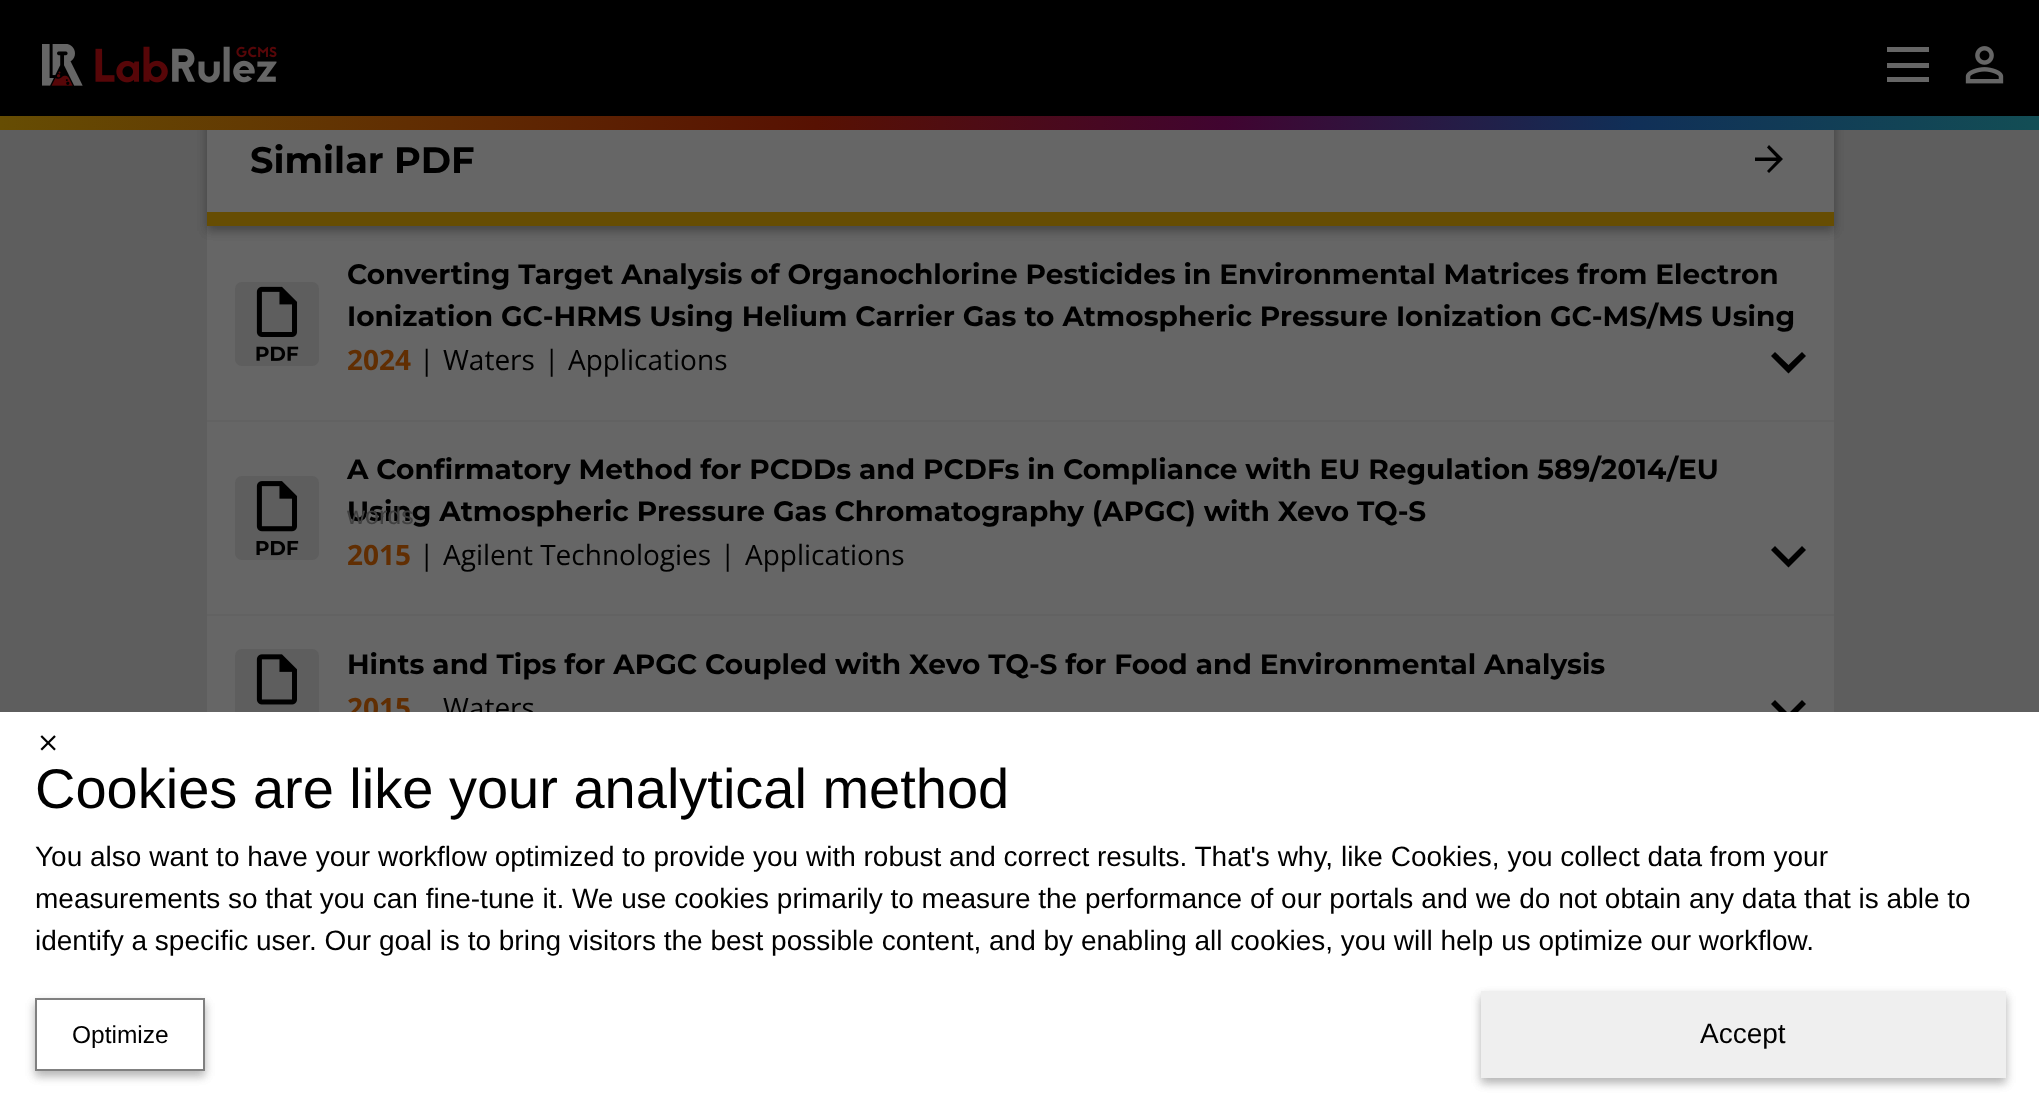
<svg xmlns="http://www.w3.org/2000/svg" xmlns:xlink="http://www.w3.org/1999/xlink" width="2039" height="1113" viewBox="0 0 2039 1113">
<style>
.cls-1{font:bold 36.75px Montserrat;fill:#000000}
.cls-2{font:bold 28px Montserrat;fill:#000000}
.cls-3{font:bold 28px Open Sans;fill:#612e02}
.cls-4{font:28px Open Sans;fill:#000000}
.cls-5{font:25px Liberation Sans;fill:#404040}
.cls-6{font:56px Liberation Sans;fill:#000000}
.cls-7{font:28px Liberation Sans;fill:#000000}
.cls-8{font:24.5px Liberation Sans;fill:#000000}
</style>
<defs>
<linearGradient id="g1" gradientUnits="userSpaceOnUse" x1="0" y1="130" x2="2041" y2="129"><stop offset="0" stop-color="#664d03"/><stop offset="0.2" stop-color="#612e02"/><stop offset="0.4" stop-color="#571102"/><stop offset="0.6" stop-color="#400430"/><stop offset="0.8" stop-color="#102f57"/><stop offset="1" stop-color="#134e55"/></linearGradient>
</defs>
<rect width="100%" height="100%" fill="#5e5e5e"/>
<rect fill="#666666" x="207" y="226" width="1627" height="486"/>
<rect fill="#000000" fill-opacity="0.16" filter="blur(5px)" x="207" y="119" width="1627" height="112"/>
<rect fill="#000000" fill-opacity="0.16" filter="blur(5px)" x="207" y="119" width="1627" height="112"/>
<rect fill="url(#g1)" x="0" y="116" width="2039" height="14"/>
<rect fill="#000000" x="0" y="0" width="2039" height="116"/>
<image xlink:href="image0.png" x="42" y="44" width="235" height="42"/>
<rect fill="#666666" x="1887" y="47" width="42" height="5"/>
<rect fill="#666666" x="1887" y="63" width="42" height="5"/>
<rect fill="#666666" x="1887" y="77" width="42" height="5"/>
<image xlink:href="image1.png" x="1965" y="46" width="39" height="38"/>
<rect fill="#666666" x="207" y="130" width="1627" height="82"/>
<rect fill="#664d03" x="207" y="212" width="1627" height="14"/>
<path fill="#000000" d="M1769 145L1767 147.5L1776.5 157.5H1755V161H1776.5L1767 171L1769 173L1783 159Z"/>
<rect fill="#626262" x="207" y="420" width="1627" height="2"/>
<rect fill="#5e5e5e" x="235" y="282" width="84" height="84" rx="7"/>
<image xlink:href="image2.png" x="256" y="286" width="43" height="75"/>
<path fill="#000000" d="M1775 352L1788.5 365L1802 352L1806 356L1788.5 373.5L1771 356Z"/>
<rect fill="#626262" x="207" y="614" width="1627" height="2"/>
<rect fill="#5e5e5e" x="235" y="476" width="84" height="84" rx="7"/>
<image xlink:href="image3.png" x="256" y="481" width="43" height="75"/>
<path fill="#000000" d="M1775 546L1788.5 559.5L1802 546L1806 550L1788.5 567.5L1771 550Z"/>
<rect fill="#5e5e5e" x="235" y="649" width="84" height="84" rx="7"/>
<image xlink:href="image4.png" x="256" y="654" width="41" height="51"/>
<path fill="#000000" d="M1775 700L1788.5 713.5L1802 700L1806 704L1788.5 721.5L1771 704Z"/>
<text class="cls-1" x="250" y="173">Similar PDF</text>
<text class="cls-2"><tspan x="347" y="284">Converting Target Analysis of Organochlorine Pesticides in Environmental Matrices from Electron</tspan><tspan x="347" y="326">Ionization GC-HRMS Using Helium Carrier Gas to Atmospheric Pressure Ionization GC-MS/MS Using</tspan></text>
<text class="cls-3" x="347" y="370">2024</text>
<text class="cls-4" x="419" y="370">|</text>
<text class="cls-4" x="443" y="370">Waters</text>
<text class="cls-4" x="544" y="370">|</text>
<text class="cls-4" x="568" y="370">Applications</text>
<text class="cls-2"><tspan x="347" y="479">A Confirmatory Method for PCDDs and PCDFs in Compliance with EU Regulation 589/2014/EU</tspan><tspan x="347" y="521">Using Atmospheric Pressure Gas Chromatography (APGC) with Xevo TQ-S</tspan></text>
<text class="cls-5" x="347" y="524">words</text>
<text class="cls-3" x="347" y="565">2015</text>
<text class="cls-4" x="419" y="565">|</text>
<text class="cls-4" x="443" y="565">Agilent Technologies</text>
<text class="cls-4" x="720" y="565">|</text>
<text class="cls-4" x="745" y="565">Applications</text>
<text class="cls-2" x="347" y="674">Hints and Tips for APGC Coupled with Xevo TQ-S for Food and Environmental Analysis</text>
<text class="cls-3" x="347" y="718">2015</text>
<text class="cls-4" x="443" y="718">Waters</text>
<rect fill="#ffffff" x="0" y="712" width="2039" height="401"/>
<image xlink:href="image5.png" x="40" y="735" width="16" height="16"/>
<text class="cls-6" x="35" y="808">Cookies are like your analytical method</text>
<text class="cls-7"><tspan x="35" y="866">You also want to have your workflow optimized to provide you with robust and correct results. That's why, like Cookies, you collect data from your</tspan><tspan x="35" y="908">measurements so that you can fine-tune it. We use cookies primarily to measure the performance of our portals and we do not obtain any data that is able to</tspan><tspan x="35" y="950">identify a specific user. Our goal is to bring visitors the best possible content, and by enabling all cookies, you will help us optimize our workflow.</tspan></text>
<rect fill="#000000" fill-opacity="0.16" filter="blur(5px)" x="35" y="1003" width="170" height="73"/>
<rect fill="#000000" fill-opacity="0.16" filter="blur(5px)" x="35" y="1003" width="170" height="73"/>
<rect fill="#ffffff" stroke="#808080" stroke-width="2" x="36" y="999" width="168" height="71"/>
<text class="cls-8" x="72" y="1043">Optimize</text>
<rect fill="#000000" fill-opacity="0.16" filter="blur(5px)" x="1481" y="996" width="525" height="87"/>
<rect fill="#000000" fill-opacity="0.16" filter="blur(5px)" x="1481" y="996" width="525" height="87"/>
<rect fill="#efefef" x="1481" y="991" width="525" height="87"/>
<text class="cls-7" x="1700" y="1043">Accept</text>
</svg>
